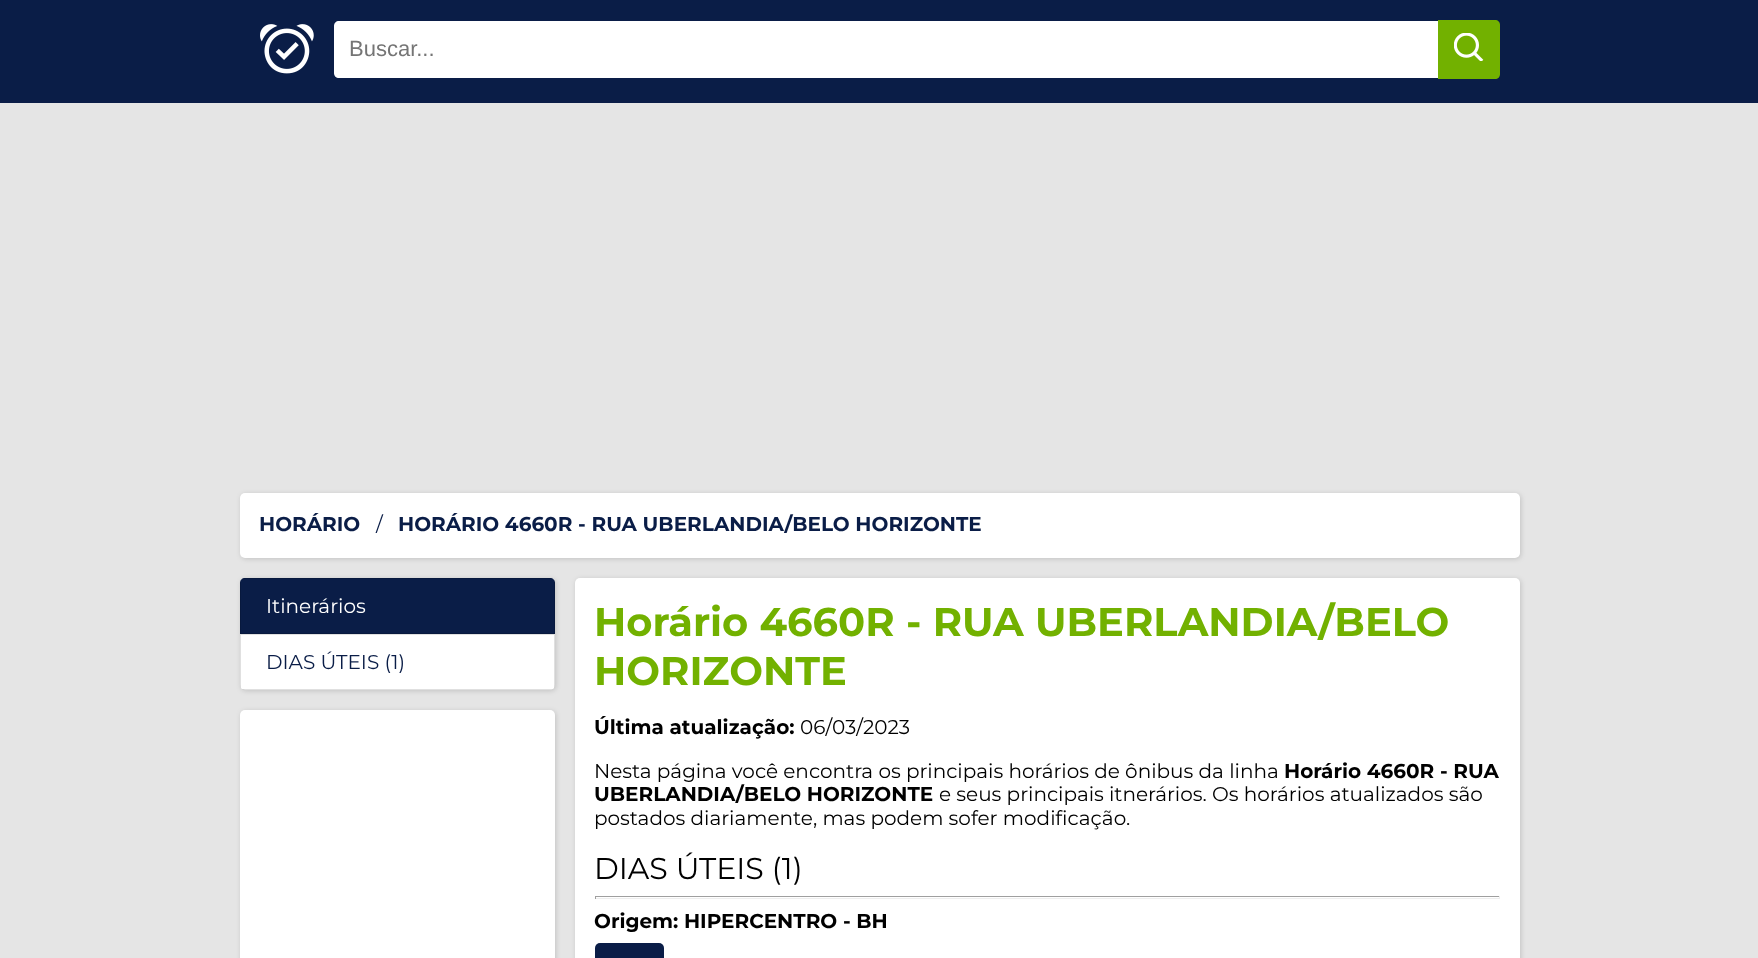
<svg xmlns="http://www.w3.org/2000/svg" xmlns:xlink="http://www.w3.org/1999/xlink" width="1758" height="958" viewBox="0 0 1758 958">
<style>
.cls-1{font:22px Liberation Sans;fill:#757575}
.cls-2{font:bold 20px Montserrat;fill:#0a1d47}
.cls-3{font:20px Montserrat;fill:#0a1d47}
.cls-4{font:20px Montserrat;fill:#ffffff}
.cls-5{font:bold 40px Montserrat;fill:#72b100}
.cls-6{font:bold 20px Montserrat;fill:#000000}
.cls-7{font:20px Montserrat;fill:#000000}
.cls-8{font:30px Montserrat;fill:#000000}
</style>
<rect width="100%" height="100%" fill="#e5e5e5"/>
<rect fill="#0a1d47" x="0" y="0" width="1758" height="103"/>
<image xlink:href="image0.png" x="260" y="24" width="54" height="50"/>
<path fill="#ffffff" d="M339 21H1438V78H339C336 78 334 76 334 73V26C334 23 336 21 339 21Z"/>
<path fill="#72b100" d="M1438 20H1495C1498 20 1500 22 1500 25V74C1500 77 1498 79 1495 79H1438Z"/>
<image xlink:href="image1.png" x="1454" y="33" width="30" height="28"/>
<rect fill="#000000" fill-opacity="0.15" filter="blur(2.5px)" x="241" y="494" width="1280" height="65" rx="5"/>
<rect fill="#ffffff" x="240" y="493" width="1280" height="65" rx="5"/>
<rect fill="#000000" fill-opacity="0.15" filter="blur(2.5px)" x="241" y="579" width="315" height="112" rx="5"/>
<rect fill="#ffffff" x="240" y="578" width="315" height="112" rx="5"/>
<path fill="#0a1d47" d="M245 578H550C553 578 555 580 555 583V634H240V583C240 580 242 578 245 578Z"/>
<path fill="#000000" fill-opacity="0.12" fill-rule="evenodd" d="M240 583V634H555V583C555 582 555 581 554 580V633H241V580ZM245 578L242 579H553L550 578Z"/>
<path fill="#000000" fill-opacity="0.12" fill-rule="evenodd" d="M241 635H554V688C555 687 555 686 555 685V634H240V685C240 686 240 687 241 688ZM550 690L553 689H242C243 690 244 690 245 690Z"/>
<rect fill="#000000" fill-opacity="0.15" filter="blur(2.5px)" x="241" y="711" width="315" height="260" rx="5"/>
<rect fill="#ffffff" x="240" y="710" width="315" height="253" rx="5"/>
<rect fill="#000000" fill-opacity="0.15" filter="blur(2.5px)" x="576" y="579" width="945" height="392" rx="5"/>
<rect fill="#ffffff" x="575" y="578" width="945" height="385" rx="5"/>
<rect fill="#9f9f9f" x="595" y="896" width="905" height="1"/>
<rect fill="#eeeeee" x="1499" y="896" width="1" height="3"/>
<rect fill="#eeeeee" x="595" y="898" width="905" height="1"/>
<rect fill="#9f9f9f" x="595" y="896" width="1" height="3"/>
<rect fill="#0a1d47" x="595" y="943" width="69" height="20" rx="5"/>
<text class="cls-1" x="349" y="56">Buscar...</text>
<text class="cls-2" x="259" y="531">HORÁRIO</text>
<text class="cls-3" x="376" y="531">/</text>
<text class="cls-2" x="398" y="531">HORÁRIO 4660R - RUA UBERLANDIA/BELO HORIZONTE</text>
<text class="cls-4" x="266" y="613">Itinerários</text>
<text class="cls-3" x="266" y="669">DIAS ÚTEIS (1)</text>
<text class="cls-5"><tspan x="594" y="636">Horário 4660R - RUA UBERLANDIA/BELO</tspan><tspan x="594" y="685">HORIZONTE</tspan></text>
<text class="cls-6" x="594" y="734">Última atualização:</text>
<text class="cls-7" x="800" y="734">06/03/2023</text>
<text class="cls-7" x="594" y="778">Nesta página você encontra os principais horários de ônibus da linha</text>
<text class="cls-6" x="1284" y="778">Horário 4660R - RUA</text>
<text class="cls-6" x="594" y="801">UBERLANDIA/BELO HORIZONTE</text>
<text class="cls-7" x="939" y="801">e seus principais itnerários. Os horários atualizados são</text>
<text class="cls-7" x="594" y="825">postados diariamente, mas podem sofer modificação.</text>
<text class="cls-8" x="594" y="879">DIAS ÚTEIS (1)</text>
<text class="cls-6" x="594" y="928">Origem: HIPERCENTRO - BH</text>
</svg>
